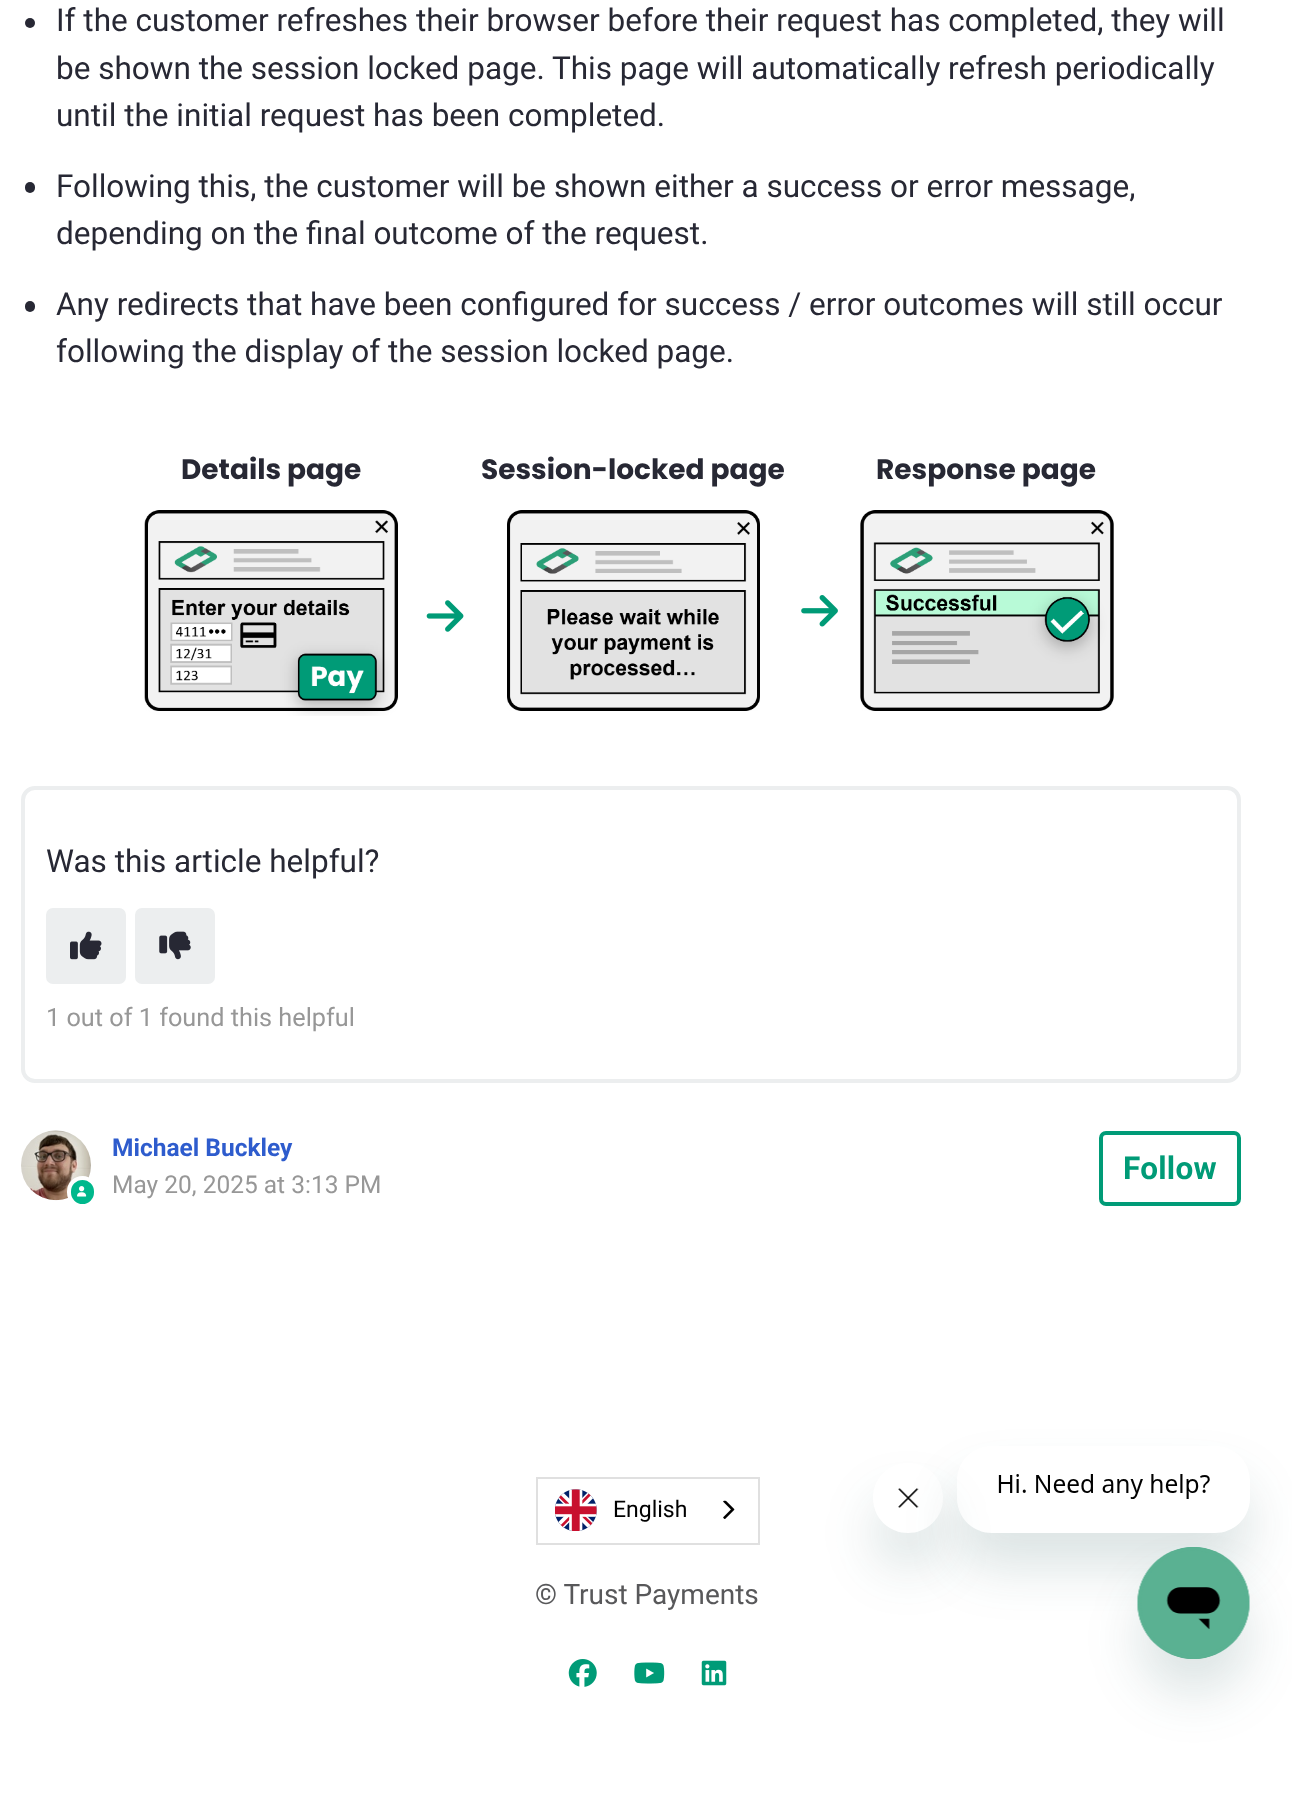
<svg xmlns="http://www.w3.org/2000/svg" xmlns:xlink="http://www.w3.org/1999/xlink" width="1292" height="1807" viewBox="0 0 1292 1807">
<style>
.cls-1{font:31.5px Roboto;fill:#272834}
.cls-2{font:bold 28px Poppins;fill:#272834}
.cls-3{font:25.25px Roboto;fill:#979797}
.cls-4{font:bold 24.5px Roboto;fill:#2e5ccd}
.cls-5{font:24.5px Roboto;fill:#979797}
.cls-6{font:bold 31.5px Roboto;letter-spacing:0.25px;fill:#009b77}
.cls-7{font:23px Roboto;fill:#000000}
.cls-8{font:28px Roboto;fill:#58585a}
</style>
<defs>
<clipPath id="clip1"><path d="M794 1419H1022V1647H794ZM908 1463C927.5 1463 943 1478.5 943 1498C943 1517.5 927.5 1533 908 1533C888.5 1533 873 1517.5 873 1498C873 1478.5 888.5 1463 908 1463Z" clip-rule="evenodd"/></clipPath>
<clipPath id="clip2"><path d="M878 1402H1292V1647H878ZM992 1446H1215C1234.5 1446 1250 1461.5 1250 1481V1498C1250 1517.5 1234.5 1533 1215 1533H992C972.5 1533 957 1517.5 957 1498V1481C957 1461.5 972.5 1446 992 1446Z" clip-rule="evenodd"/></clipPath>
</defs>
<rect width="100%" height="100%" fill="#ffffff"/>
<circle fill="#272834" cx="30" cy="23" r="5"/>
<rect fill="#272834" x="25" y="182" width="10" height="11" rx="5"/>
<rect fill="#272834" x="25" y="301" width="10" height="11" rx="5"/>
<image xlink:href="image0.png" x="144" y="510" width="254" height="206"/>
<image xlink:href="image1.png" x="426" y="600" width="38" height="32"/>
<image xlink:href="image2.png" x="507" y="510" width="253" height="201"/>
<image xlink:href="image3.png" x="801" y="595" width="37" height="32"/>
<image xlink:href="image4.png" x="860" y="510" width="254" height="201"/>
<rect fill="none" stroke="#eceeef" stroke-width="4" x="23" y="788" width="1216" height="293" rx="12"/>
<rect fill="#eceeef" stroke="#eceeef" stroke-width="4" x="48" y="910" width="76" height="72" rx="5"/>
<image xlink:href="image5.png" x="70" y="931" width="32" height="29"/>
<rect fill="#eceeef" stroke="#eceeef" stroke-width="4" x="137" y="910" width="76" height="72" rx="5"/>
<image xlink:href="image6.png" x="159" y="931" width="32" height="29"/>
<image xlink:href="image7.png" x="21" y="1130" width="70" height="71"/>
<rect fill="#00b88c" stroke="#ffffff" stroke-width="4" x="69" y="1178" width="27" height="28" rx="13.5"/>
<image xlink:href="image8.png" x="77" y="1186" width="10" height="11"/>
<rect fill="none" stroke="#009b77" stroke-width="4" x="1101" y="1133" width="138" height="71" rx="5"/>
<rect fill="none" stroke="#e0e0e0" stroke-width="2" x="537" y="1478" width="222" height="66"/>
<image xlink:href="image9.png" x="555" y="1489" width="42" height="42"/>
<image xlink:href="image10.png" x="723" y="1500" width="12" height="19"/>
<image xlink:href="image11.png" x="568" y="1659" width="29" height="28"/>
<image xlink:href="image12.png" x="634" y="1662" width="31" height="22"/>
<image xlink:href="image13.png" x="701" y="1660" width="26" height="26"/>
<g clip-path="url(#clip1)">
<rect fill="#17494d" fill-opacity="0.15" filter="blur(26px)" x="873" y="1498" width="70" height="70" rx="35"/>
</g>
<image xlink:href="image15.png" x="898" y="1488" width="21" height="20"/>
<g clip-path="url(#clip2)">
<rect fill="#17494d" fill-opacity="0.15" filter="blur(26px)" x="957" y="1481" width="293" height="87" rx="35"/>
</g>
<image xlink:href="image14.png" x="998" y="1474" width="212" height="25"/>
<rect fill="#17494d" fill-opacity="0.15" filter="blur(26px)" x="1138" y="1582" width="112" height="112" rx="56"/>
<image xlink:href="image16.png" x="1137" y="1547" width="113" height="112"/>
<text class="cls-1"><tspan x="56" y="31">If the customer refreshes their browser before their request has completed, they will</tspan><tspan x="56" y="79">be shown the session locked page. This page will automatically refresh periodically</tspan><tspan x="56" y="126">until the initial request has been completed.</tspan></text>
<text class="cls-1"><tspan x="56" y="197">Following this, the customer will be shown either a success or error message,</tspan><tspan x="56" y="244">depending on the final outcome of the request.</tspan></text>
<text class="cls-1"><tspan x="56" y="315">Any redirects that have been configured for success / error outcomes will still occur</tspan><tspan x="56" y="362">following the display of the session locked page.</tspan></text>
<text class="cls-2" x="181" y="479">Details page</text>
<text class="cls-2" x="481" y="479">Session-locked page</text>
<text class="cls-2" x="876" y="479">Response page</text>
<text class="cls-1" x="46" y="872">Was this article helpful?</text>
<text class="cls-3" x="46" y="1026">1 out of 1 found this helpful</text>
<text class="cls-4" x="112" y="1156">Michael Buckley</text>
<text class="cls-5" x="112" y="1193">May 20, 2025 at 3:13 PM</text>
<text class="cls-6" x="1123" y="1179">Follow</text>
<text class="cls-7" x="613" y="1517">English</text>
<text class="cls-8" x="535" y="1604">© Trust Payments</text>
</svg>
